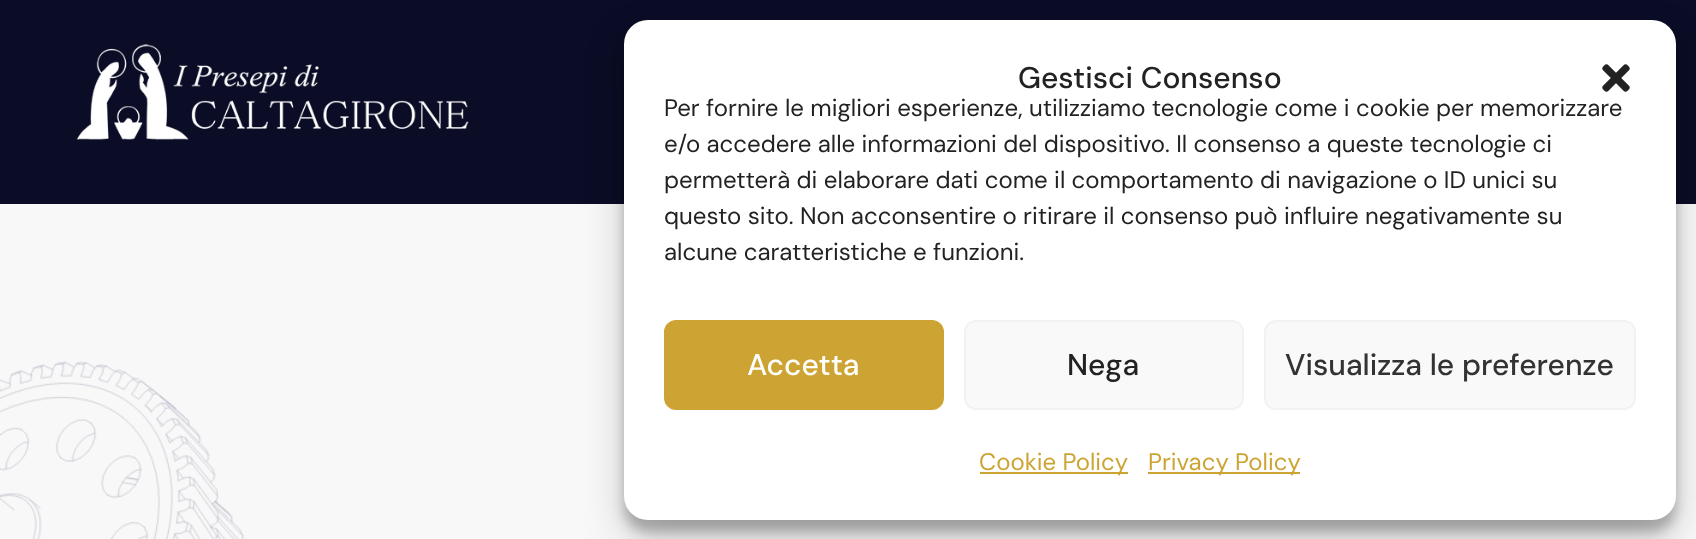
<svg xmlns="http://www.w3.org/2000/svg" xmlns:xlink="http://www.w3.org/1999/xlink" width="1696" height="539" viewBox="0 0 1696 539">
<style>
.cls-1{font:500 30px DM Sans;fill:#222222}
.cls-2{font:24px DM Sans;fill:#222222}
.cls-3{font:500 30px DM Sans;fill:#ffffff}
.cls-4{font:500 30px DM Sans;fill:#333333}
.cls-5{font:24px DM Sans;fill:#cda434}
</style>
<rect width="100%" height="100%" fill="#f8f8f8"/>
<rect fill="#0b0d26" x="0" y="0" width="1696" height="204"/>
<image xlink:href="image0.png" x="77" y="44" width="392" height="96"/>
<image xlink:href="image1.png" x="0" y="361" width="244" height="178"/>
<rect fill="#000000" fill-opacity="0.23" filter="blur(6px)" x="624" y="32" width="1052" height="500" rx="24"/>
<rect fill="#000000" fill-opacity="0.19" filter="blur(20px)" x="624" y="40" width="1052" height="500" rx="24"/>
<rect fill="#ffffff" x="624" y="20" width="1052" height="500" rx="24"/>
<image xlink:href="image2.png" x="1602" y="64" width="28" height="28"/>
<rect fill="#cda434" stroke="#cda434" stroke-width="2" x="665" y="321" width="278" height="88" rx="11"/>
<rect fill="#f9f9f9" stroke="#f2f2f2" stroke-width="2" x="965" y="321" width="278" height="88" rx="11"/>
<rect fill="#f9f9f9" stroke="#f2f2f2" stroke-width="2" x="1265" y="321" width="370" height="88" rx="11"/>
<rect fill="#cda434" x="980" y="472" width="148" height="2"/>
<rect fill="#cda434" x="1148" y="472" width="152" height="2"/>
<text class="cls-1" x="1018" y="88">Gestisci Consenso</text>
<text class="cls-2"><tspan x="664" y="116">Per fornire le migliori esperienze, utilizziamo tecnologie come i cookie per memorizzare</tspan><tspan x="664" y="152">e/o accedere alle informazioni del dispositivo. Il consenso a queste tecnologie ci</tspan><tspan x="664" y="188">permetterà di elaborare dati come il comportamento di navigazione o ID unici su</tspan><tspan x="664" y="224">questo sito. Non acconsentire o ritirare il consenso può influire negativamente su</tspan><tspan x="664" y="260">alcune caratteristiche e funzioni.</tspan></text>
<text class="cls-3" x="747" y="375">Accetta</text>
<text class="cls-1" x="1067" y="375">Nega</text>
<text class="cls-4" x="1285" y="375">Visualizza le preferenze</text>
<text class="cls-5" x="979" y="470">Cookie Policy</text>
<text class="cls-5" x="1148" y="470">Privacy Policy</text>
</svg>
